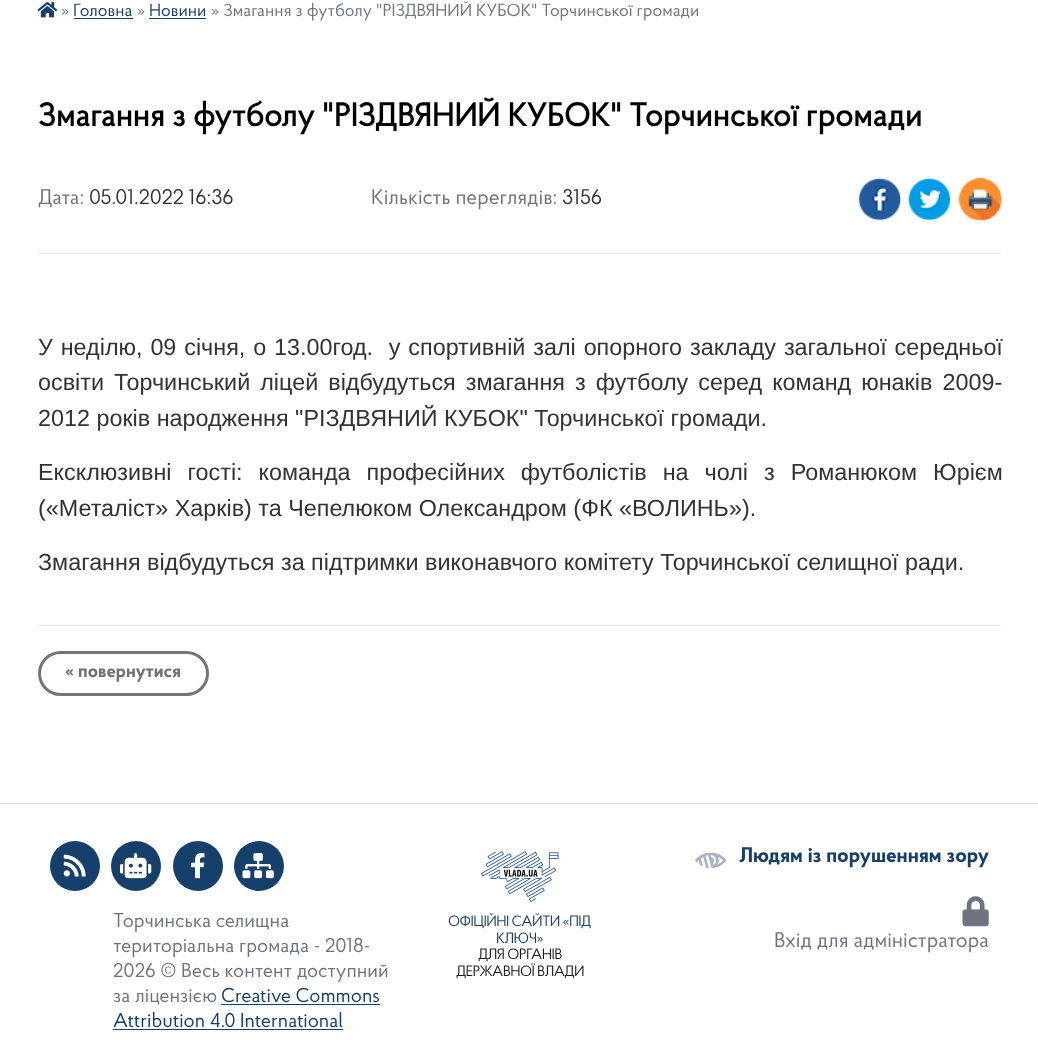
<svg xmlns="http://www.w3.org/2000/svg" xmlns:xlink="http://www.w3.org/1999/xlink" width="1038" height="1040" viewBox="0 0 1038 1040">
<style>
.cls-1{font:17.5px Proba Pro;fill:#6d7381}
.cls-2{font:17.5px Proba Pro;fill:#16406c}
.cls-3{font:bold 32.5px 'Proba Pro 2';fill:#000000}
.cls-4{font:21.25px Proba Pro;fill:#727272}
.cls-5{font:21.25px Proba Pro;fill:#333333}
.cls-6{font:23.35px Liberation Sans;fill:#333333}
.cls-7{font:bold 18.75px Proba Pro;fill:#727272}
.cls-8{font:bold 21.25px Proba Pro;fill:#16406c}
.cls-9{font:21.25px Proba Pro;fill:#6d7381}
.cls-10{font:20px Proba Pro;fill:#6d7381}
.cls-11{font:20px Proba Pro;fill:#16406c}
.cls-12{font:15px Proba Pro;letter-spacing:-0.6px;fill:#16406c}
.cls-13{font:15px Proba Pro;letter-spacing:-0.6px;fill:#1d1d1b}
</style>
<rect width="100%" height="100%" fill="#ffffff"/>
<image xlink:href="image0.png" x="37" y="2" width="21" height="16"/>
<rect fill="#16406c" x="74" y="18" width="59" height="1"/>
<rect fill="#16406c" x="149" y="18" width="57" height="1"/>
<image xlink:href="image1.png" x="858" y="177" width="44" height="44"/>
<image xlink:href="image2.png" x="908" y="177" width="43" height="44"/>
<image xlink:href="image3.png" x="958" y="177" width="44" height="44"/>
<rect fill="#e5e5e5" x="38" y="253" width="963" height="1"/>
<rect fill="#e5e5e5" x="38" y="625" width="963" height="1"/>
<rect fill="none" stroke="#757575" stroke-width="3" x="39.5" y="652.5" width="168" height="42" rx="21"/>
<rect fill="#e6e6e6" x="0" y="803" width="1038" height="1"/>
<image xlink:href="image4.png" x="695" y="853" width="31" height="15"/>
<image xlink:href="image5.png" x="962" y="896" width="27" height="31"/>
<circle fill="#16406c" cx="75" cy="866" r="25"/>
<image xlink:href="image6.png" x="63" y="854" width="23" height="23"/>
<circle fill="#16406c" cx="136" cy="866" r="25"/>
<image xlink:href="image7.png" x="120" y="853" width="32" height="26"/>
<circle fill="#16406c" cx="198" cy="866" r="25"/>
<image xlink:href="image8.png" x="191" y="853" width="14" height="26"/>
<circle fill="#16406c" cx="259" cy="866" r="25"/>
<image xlink:href="image9.png" x="242" y="853" width="32" height="26"/>
<rect fill="#16406c" x="221" y="1004" width="159" height="1"/>
<rect fill="#16406c" x="113" y="1029" width="230" height="1"/>
<image xlink:href="image10.png" x="481" y="851" width="78" height="51"/>
<text class="cls-1" x="61" y="16">»</text>
<text class="cls-2" x="73" y="16">Головна</text>
<text class="cls-1" x="137" y="16">»</text>
<text class="cls-2" x="149" y="16">Новини</text>
<text class="cls-1" x="211" y="16">» Змагання з футболу "РІЗДВЯНИЙ КУБОК" Торчинської громади</text>
<text class="cls-3" x="38" y="126">Змагання з футболу "РІЗДВЯНИЙ КУБОК" Торчинської громади</text>
<text class="cls-4" x="38" y="204">Дата:</text>
<text class="cls-5" x="89" y="204">05.01.2022 16:36</text>
<text class="cls-4" x="371" y="204">Кількість переглядів:</text>
<text class="cls-5" x="562" y="204">3156</text>
<text class="cls-6" xml:space="preserve"><tspan x="38" y="355" word-spacing="1.4">У неділю, 09 січня, о 13.00год.  у спортивній залі опорного закладу загальної середньої</tspan><tspan x="38" y="390" word-spacing="3.6">освіти Торчинський ліцей відбудуться змагання з футболу серед команд юнаків 2009-</tspan><tspan x="38" y="426">2012 років народження "РІЗДВЯНИЙ КУБОК" Торчинської громади.</tspan></text>
<text class="cls-6"><tspan x="38" y="480" word-spacing="9.5">Ексклюзивні гості: команда професійних футболістів на чолі з Романюком Юрієм</tspan><tspan x="38" y="516">(«Металіст» Харків) та Чепелюком Олександром (ФК «ВОЛИНЬ»).</tspan></text>
<text class="cls-6" x="38" y="570">Змагання відбудуться за підтримки виконавчого комітету Торчинської селищної ради.</text>
<text class="cls-7" x="65" y="677">« повернутися</text>
<text class="cls-8" x="739" y="862">Людям із порушенням зору</text>
<text class="cls-9" x="774" y="947">Вхід для адміністратора</text>
<text class="cls-10"><tspan x="113" y="927">Торчинська селищна</tspan><tspan x="113" y="952">територіальна громада - 2018-</tspan><tspan x="113" y="977">2026 © Весь контент доступний</tspan><tspan x="113" y="1002">за ліцензією</tspan></text>
<text class="cls-11" x="221" y="1002">Creative Commons</text>
<text class="cls-11" x="113" y="1027">Attribution 4.0 International</text>
<text class="cls-12" x="448" y="926">ОФІЦІЙНІ САЙТИ «ПІД</text>
<text class="cls-12" x="496" y="943">КЛЮЧ»</text>
<text class="cls-13" x="478" y="959">ДЛЯ ОРГАНІВ</text>
<text class="cls-13" x="456" y="976">ДЕРЖАВНОЇ ВЛАДИ</text>
</svg>
